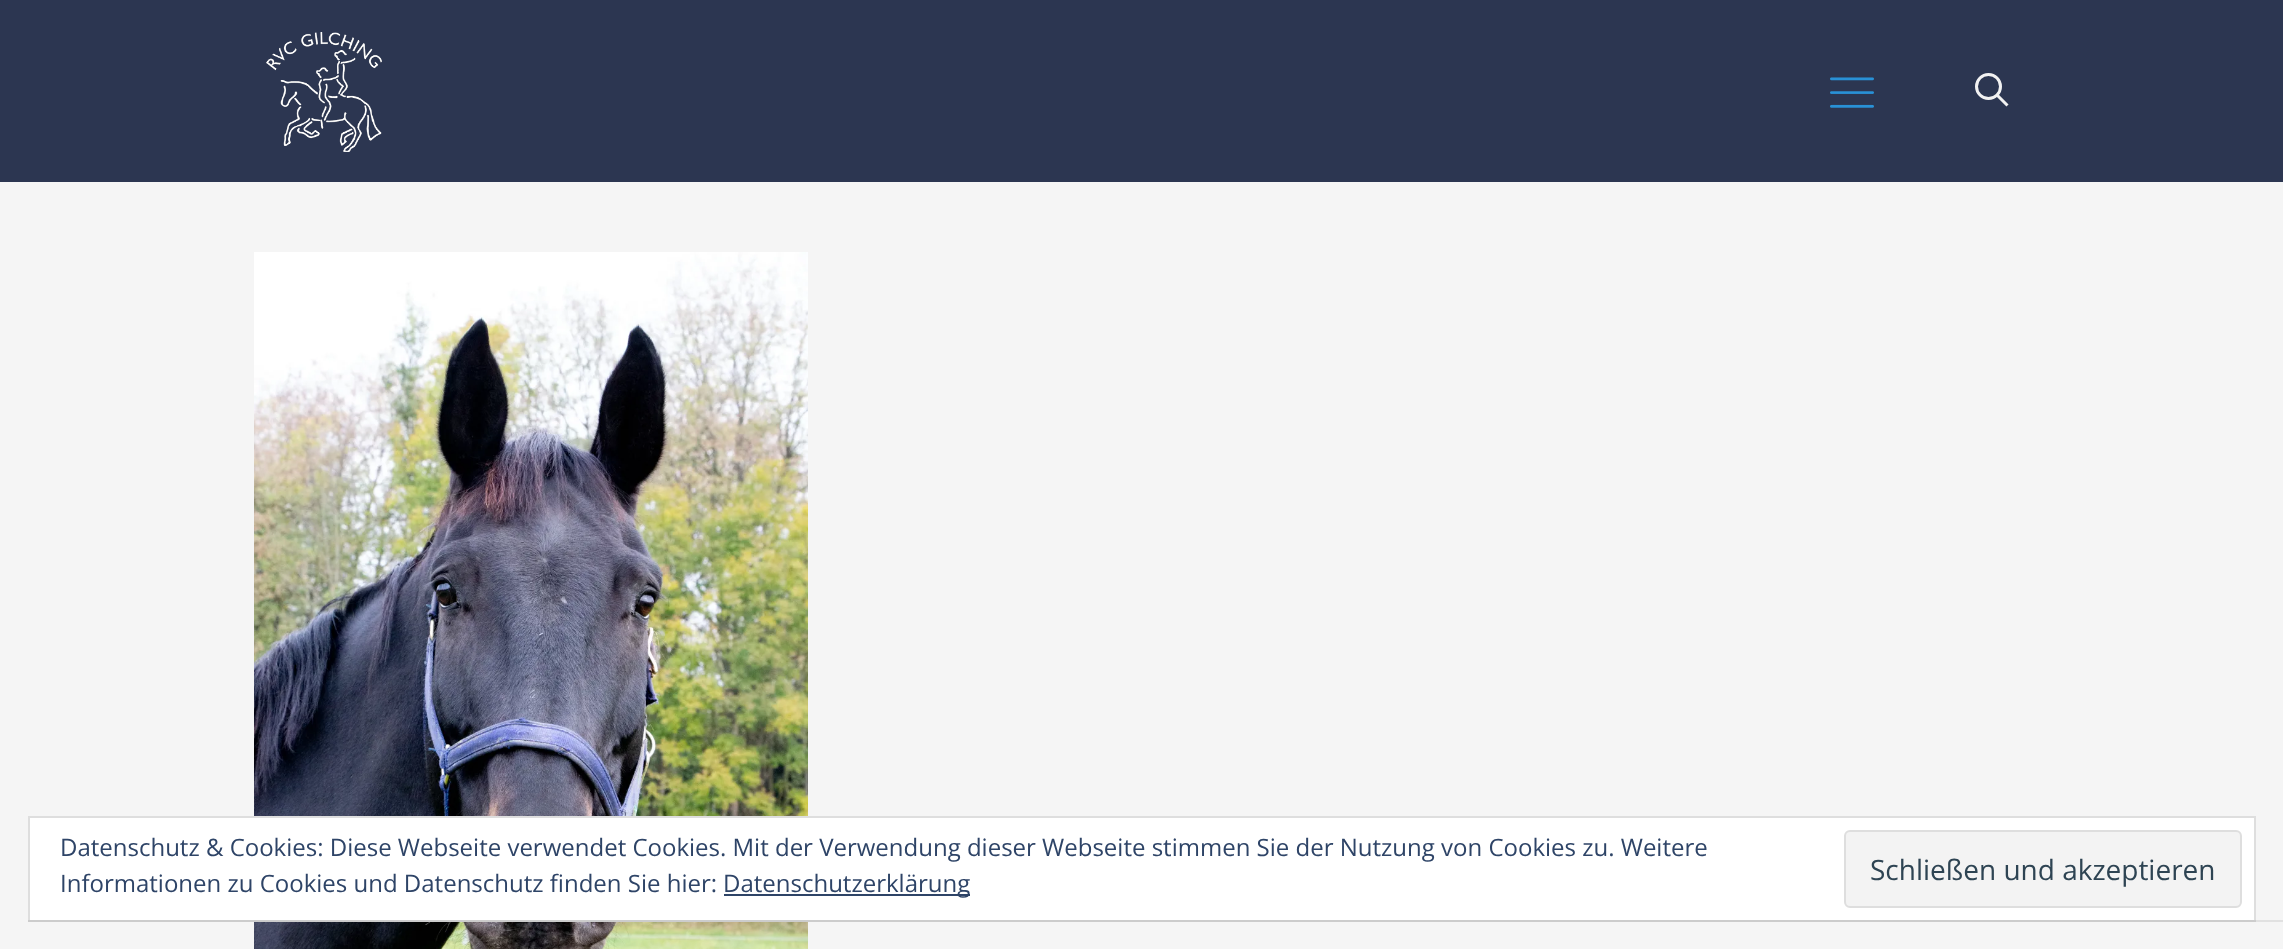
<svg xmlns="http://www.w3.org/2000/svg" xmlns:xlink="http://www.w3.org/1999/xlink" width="2283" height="949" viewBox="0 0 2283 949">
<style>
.cls-1{font:24px Open Sans;fill:#2e4467}
.cls-2{font:28px Open Sans;fill:#2e4453}
</style>
<rect width="100%" height="100%" fill="#f5f5f5"/>
<rect fill="#2c3651" x="0" y="0" width="2283" height="182"/>
<image xlink:href="image0.png" x="266" y="32" width="116" height="120"/>
<image xlink:href="image1.png" x="1830" y="77" width="44" height="31"/>
<circle fill="none" stroke="#f2f2f2" stroke-width="3" cx="1988.5" cy="86.5" r="12"/>
<path fill="none" stroke="#f2f2f2" stroke-width="3" d="M1997 95L2007.5 105.5"/>
<image xlink:href="image2.png" x="254" y="252" width="554" height="697"/>
<rect fill="#ffffff" stroke="#dedede" stroke-width="2" x="29" y="817" width="2226" height="104"/>
<rect fill="#2e4467" x="724" y="894" width="246" height="2"/>
<rect fill="#f3f3f3" stroke="#dedede" stroke-width="2" x="1845" y="831" width="396" height="76" rx="5"/>
<rect fill="#000000" fill-opacity="0.08" x="28" y="920" width="2255" height="2"/>
<text class="cls-1"><tspan x="60" y="856">Datenschutz &amp; Cookies: Diese Webseite verwendet Cookies. Mit der Verwendung dieser Webseite stimmen Sie der Nutzung von Cookies zu. Weitere</tspan><tspan x="60" y="892">Informationen zu Cookies und Datenschutz finden Sie hier:</tspan></text>
<text class="cls-1" x="723" y="892">Datenschutzerklärung</text>
<text class="cls-2" x="1870" y="880">Schließen und akzeptieren</text>
</svg>
